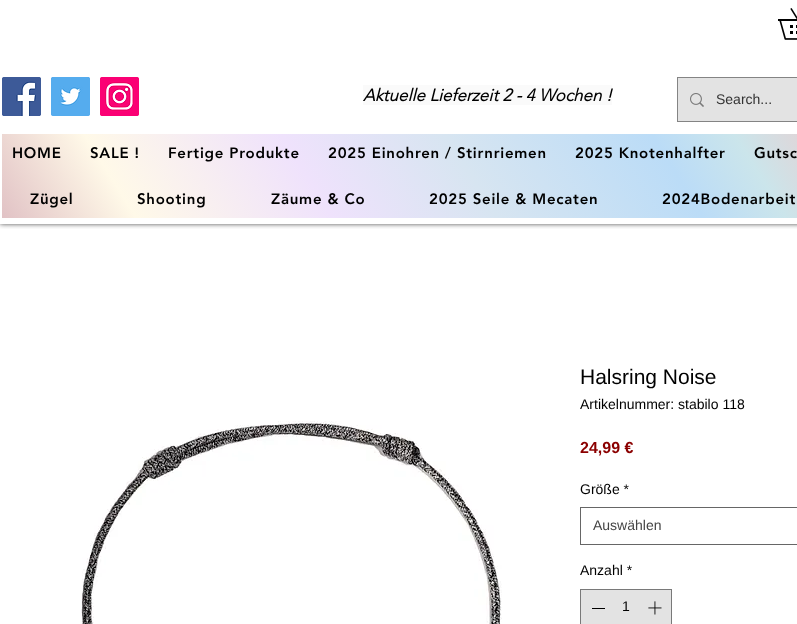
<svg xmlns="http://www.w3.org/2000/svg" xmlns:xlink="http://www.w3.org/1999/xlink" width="797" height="624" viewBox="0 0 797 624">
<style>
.cls-1{font:italic bold 17px 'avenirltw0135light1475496';fill:#000000}
.cls-2{font:14px Liberation Sans;fill:#323232}
.cls-3{font:900 15px 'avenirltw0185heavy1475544';letter-spacing:0.75px;fill:#000000}
.cls-4{font:21px Liberation Sans;fill:#000000}
.cls-5{font:14px Liberation Sans;fill:#000000}
.cls-6{font:bold 16px Liberation Sans;fill:#8b0000}
.cls-7{font:14px Liberation Sans;fill:#444444}
</style>
<defs>
<clipPath id="clip1"><rect x="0" y="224" width="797" height="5"/></clipPath>
<linearGradient id="g1" gradientUnits="userSpaceOnUse" x1="121" y1="408" x2="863" y2="-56"><stop offset="0" stop-color="#e1c2c5"/><stop offset="0.13" stop-color="#fff9e8"/><stop offset="0.32" stop-color="#efe2fc"/><stop offset="0.48" stop-color="#d7e5f1"/><stop offset="0.68" stop-color="#bbdcf7"/><stop offset="0.76" stop-color="#cbe5eb"/><stop offset="0.86" stop-color="#e9cecf"/><stop offset="0.99" stop-color="#e7d4fa"/></linearGradient>
</defs>
<rect width="100%" height="100%" fill="#ffffff"/>
<g clip-path="url(#clip1)">
<rect fill="#000000" fill-opacity="0.7" filter="blur(2.5px)" x="0" y="0" width="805" height="224"/>
</g>
<image xlink:href="image0.png" x="778" y="8" width="19" height="32"/>
<image xlink:href="image1.png" x="2" y="77" width="39" height="39"/>
<image xlink:href="image2.png" x="51" y="77" width="39" height="39"/>
<image xlink:href="image3.png" x="100" y="77" width="39" height="39"/>
<rect fill="#fafafa" x="363" y="85" width="249" height="20"/>
<rect fill="none" stroke="#848484" x="677.5" y="77.5" width="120" height="44"/>
<rect fill="#e3e3e3" x="678" y="78" width="119" height="43"/>
<image xlink:href="image4.png" x="690" y="93" width="14" height="14"/>
<rect fill="url(#g1)" x="2" y="134" width="795" height="84"/>
<image xlink:href="image5.png" x="81" y="421" width="421" height="203"/>
<rect fill="none" stroke="#666666" x="580.5" y="507.5" width="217" height="37"/>
<rect fill="#e3e3e3" stroke="#797979" x="580.5" y="589.5" width="91" height="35"/>
<rect fill="#000000" x="592" y="608" width="13" height="1"/>
<image xlink:href="image6.png" x="648" y="601" width="14" height="14"/>
<text class="cls-1" x="363" y="101">Aktuelle Lieferzeit 2 - 4 Wochen !</text>
<text class="cls-2" x="716" y="104">Search...</text>
<text class="cls-3" x="12" y="158">HOME</text>
<text class="cls-3" x="90" y="158">SALE !</text>
<text class="cls-3" x="168" y="158">Fertige Produkte</text>
<text class="cls-3" x="328" y="158">2025 Einohren / Stirnriemen</text>
<text class="cls-3" x="575" y="158">2025 Knotenhalfter</text>
<text class="cls-3" x="754" y="158">Gutsc</text>
<text class="cls-3" x="30" y="204">Zügel</text>
<text class="cls-3" x="137" y="204">Shooting</text>
<text class="cls-3" x="271" y="204">Zäume &amp; Co</text>
<text class="cls-3" x="429" y="204">2025 Seile &amp; Mecaten</text>
<text class="cls-3" x="662" y="204">2024Bodenarbeit</text>
<text class="cls-4" x="580" y="384">Halsring Noise</text>
<text class="cls-5" x="580" y="409">Artikelnummer: stabilo 118</text>
<text class="cls-6" x="580" y="453">24,99 €</text>
<text class="cls-5" x="580" y="494">Größe *</text>
<text class="cls-7" x="593" y="530">Auswählen</text>
<text class="cls-5" x="580" y="575">Anzahl *</text>
<text class="cls-5" x="622" y="611">1</text>
</svg>
